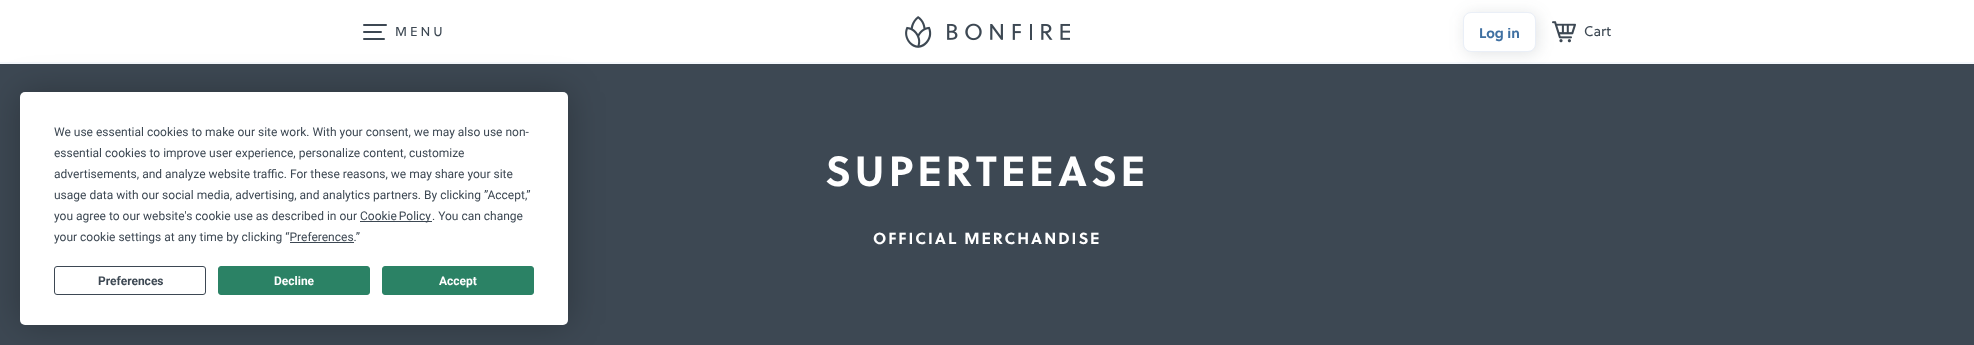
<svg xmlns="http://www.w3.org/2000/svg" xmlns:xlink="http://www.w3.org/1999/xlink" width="1974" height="345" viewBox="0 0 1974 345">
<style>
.cls-1{font:12px Roboto;fill:#3d4853}
.cls-2{font:bold 12px Roboto;fill:#3d4853}
.cls-3{font:bold 12px Roboto;fill:#ffffff}
.cls-4{font:13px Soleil;letter-spacing:3px;fill:#3d4853}
.cls-5{font:bold 14px Soleil;fill:#3f70a2}
.cls-6{font:14px Soleil;fill:#3d4853}
.cls-7{font:bold 42px Soleil;letter-spacing:4px;fill:#ffffff}
.cls-8{font:bold 16px Soleil;letter-spacing:2px;fill:#ffffff}
</style>
<rect width="100%" height="100%" fill="#3d4853"/>
<rect fill="#ffffff" x="0" y="0" width="1974" height="62"/>
<rect fill="#f5f8fc" x="0" y="62" width="1974" height="2"/>
<rect fill="#3d4853" x="363" y="38" width="22" height="2" rx="1"/>
<rect fill="#000000" fill-opacity="0.25" filter="blur(17.5px)" x="20" y="92" width="548" height="233" rx="5"/>
<rect fill="#ffffff" x="20" y="92" width="548" height="233" rx="5"/>
<rect fill="#3d4853" x="360" y="221" width="72" height="1"/>
<rect fill="#3d4853" x="290" y="242" width="64" height="1"/>
<rect fill="none" stroke="#3d4853" x="54.5" y="266.5" width="151" height="28" rx="2.5"/>
<rect fill="#2b8265" stroke="#2b8265" x="218.5" y="266.5" width="151" height="28" rx="2.5"/>
<rect fill="#2b8265" stroke="#2b8265" x="382.5" y="266.5" width="151" height="28" rx="2.5"/>
<rect fill="#3d4853" x="363" y="24" width="24" height="2" rx="1"/>
<rect fill="#3d4853" x="363" y="31" width="19" height="2" rx="1"/>
<image xlink:href="image0.png" x="905" y="16" width="165" height="32"/>
<rect fill="#3d4853" fill-opacity="0.15" filter="blur(8px)" x="1465" y="14" width="73" height="40" rx="8"/>
<rect fill="#ffffff" stroke="#eaeff7" x="1463.5" y="12.5" width="72" height="39" rx="7.5"/>
<image xlink:href="image1.png" x="1552" y="21" width="24" height="22"/>
<text class="cls-1"><tspan x="54" y="136">We use essential cookies to make our site work. With your consent, we may also use non-</tspan><tspan x="54" y="157">essential cookies to improve user experience, personalize content, customize</tspan><tspan x="54" y="178">advertisements, and analyze website traffic. For these reasons, we may share your site</tspan><tspan x="54" y="199">usage data with our social media, advertising, and analytics partners. By clicking ”Accept,”</tspan><tspan x="54" y="220">you agree to our website's cookie use as described in our</tspan></text>
<text class="cls-1" x="360" y="220" word-spacing="-1">Cookie Policy</text>
<text class="cls-1" x="432" y="220">. You can change</text>
<text class="cls-1" x="54" y="241">your cookie settings at any time by clicking “Preferences.”</text>
<text class="cls-2" x="98" y="285">Preferences</text>
<text class="cls-3" x="274" y="285">Decline</text>
<text class="cls-3" x="439" y="285">Accept</text>
<text class="cls-4" x="395" y="36">MENU</text>
<text class="cls-5" x="1479" y="38">Log in</text>
<text class="cls-6" x="1584" y="36">Cart</text>
<text class="cls-7" x="825" y="186">SUPERTEEASE</text>
<text class="cls-8" x="873" y="244">OFFICIAL MERCHANDISE</text>
</svg>
